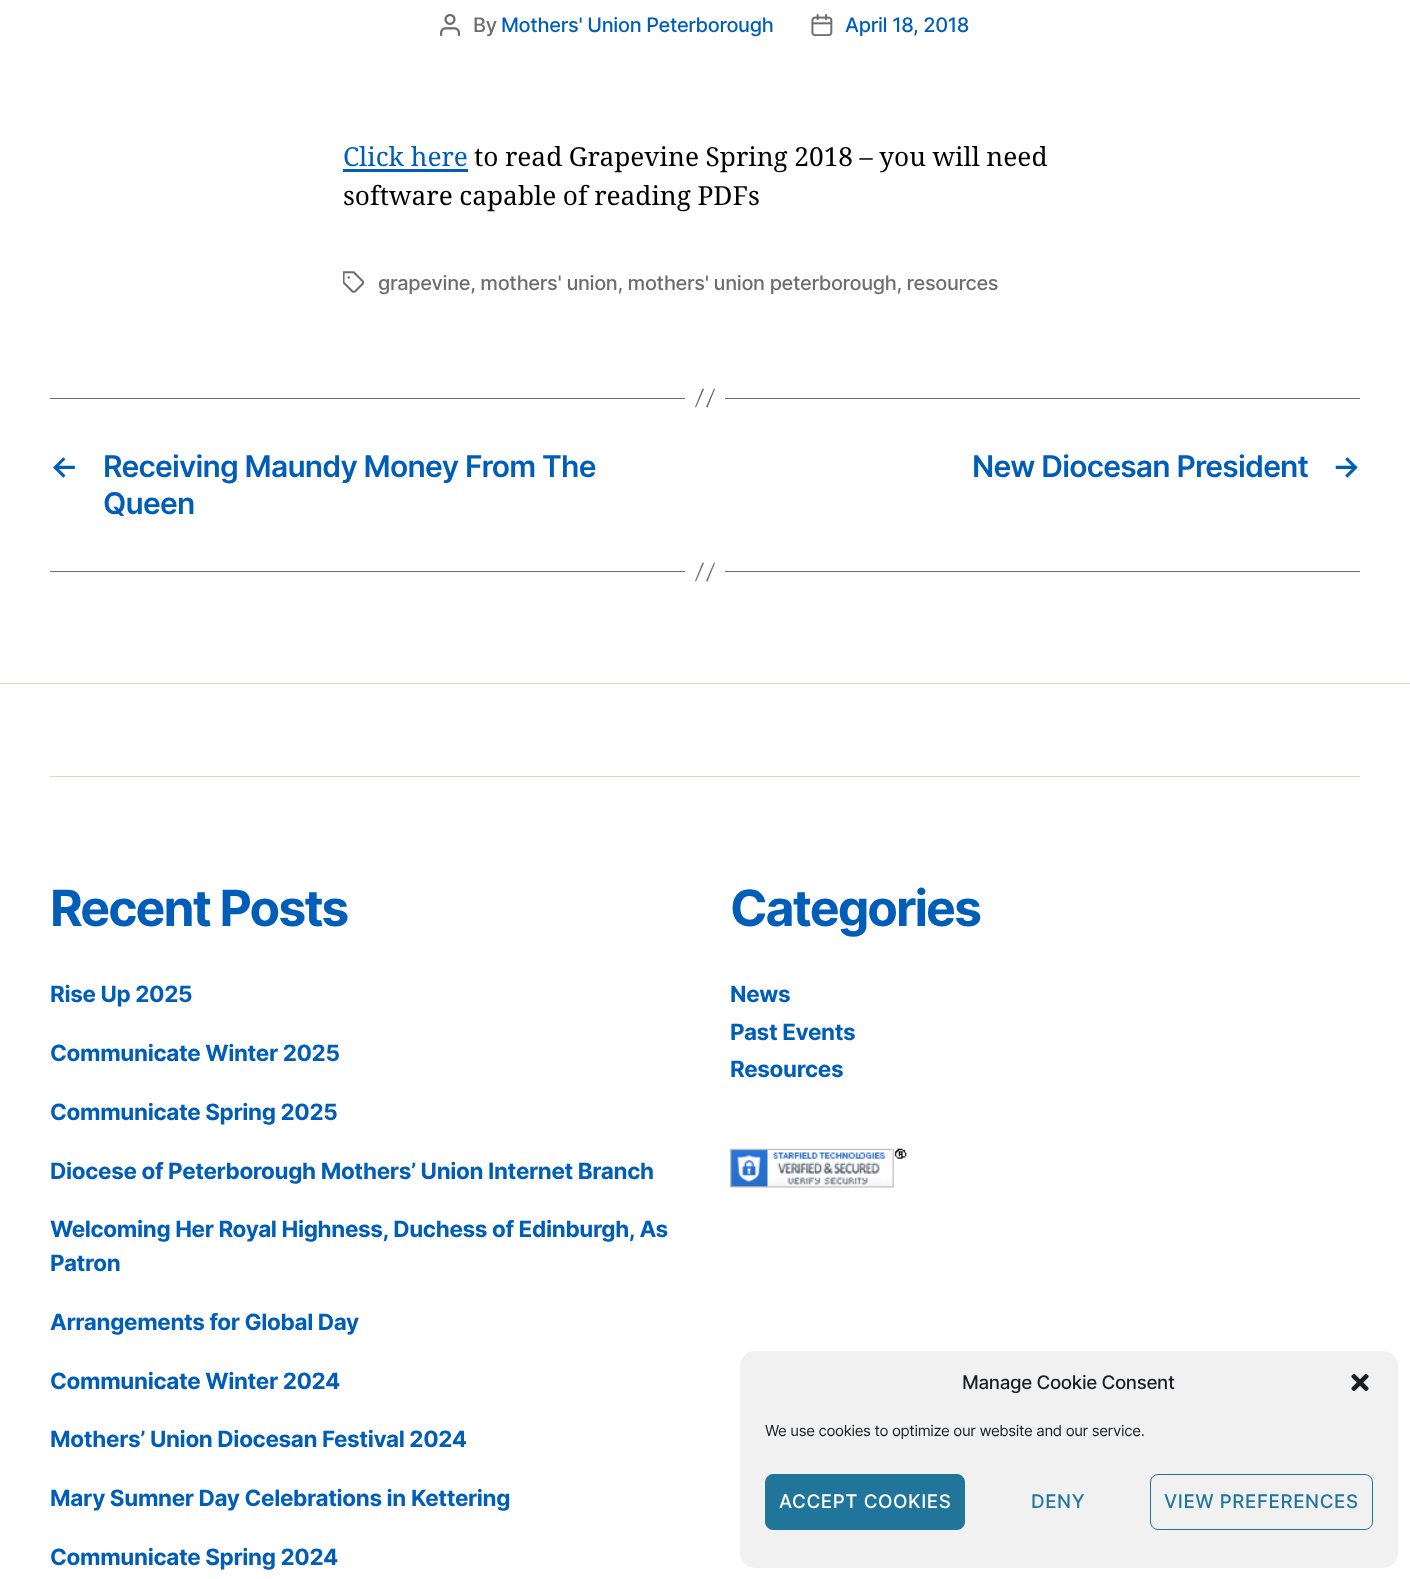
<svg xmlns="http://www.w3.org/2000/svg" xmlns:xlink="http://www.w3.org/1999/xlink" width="1410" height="1579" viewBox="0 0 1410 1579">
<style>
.cls-1{font:500 20px Inter;letter-spacing:-0.35px;fill:#6d6d6d}
.cls-2{font:500 20px Inter;letter-spacing:-0.35px;fill:#005eb8}
.cls-3{font:26.25px Noto Serif;fill:#005eb8}
.cls-4{font:26.25px Noto Serif;fill:#000000}
.cls-5{font:600 30px Inter;letter-spacing:-0.8px;fill:#005eb8}
.cls-6{font:bold 50px Inter;letter-spacing:-2px;fill:#005eb8}
.cls-7{font:bold 22.5px Inter;letter-spacing:-0.35px;fill:#005eb8}
.cls-8{font:500 18.75px Inter;letter-spacing:-0.35px;fill:#191e23}
.cls-9{font:15px Inter;letter-spacing:-0.35px;fill:#191e23}
.cls-10{font:500 18.75px Inter;letter-spacing:0.6px;fill:#ffffff}
.cls-11{font:500 18.75px Inter;letter-spacing:0.6px;fill:#21759b}
</style>
<rect width="100%" height="100%" fill="#ffffff"/>
<image xlink:href="image0.png" x="440" y="14" width="20" height="22"/>
<image xlink:href="image1.png" x="811" y="14" width="22" height="22"/>
<rect fill="#005eb8" x="343" y="169" width="125" height="3"/>
<image xlink:href="image2.png" x="343" y="271" width="22" height="22"/>
<rect fill="#6d6d6d" x="725" y="398" width="635" height="1"/>
<rect fill="#6d6d6d" x="50" y="398" width="635" height="1"/>
<path fill="#6d6d6d" d="M702.5 388.5L704 389L696 407.5L695 407ZM714 388.5L715 389L707.5 407.5L706 407Z"/>
<rect fill="#6d6d6d" x="725" y="571" width="635" height="1"/>
<rect fill="#6d6d6d" x="50" y="571" width="635" height="1"/>
<path fill="#6d6d6d" d="M702.5 562.5L704 563L696 581.5L695 581ZM714 562.5L715 563L707.5 581.5L706 581Z"/>
<rect fill="#dcd7ca" x="0" y="683" width="1410" height="1"/>
<rect fill="#dcd7ca" x="50" y="776" width="1310" height="1"/>
<image xlink:href="image3.png" x="730" y="1148" width="177" height="40"/>
<rect fill="#f1f1f1" x="740" y="1351" width="658" height="217" rx="15"/>
<image xlink:href="image4.png" x="1351" y="1373" width="18" height="18"/>
<rect fill="#21759b" stroke="#21759b" x="765.5" y="1474.5" width="199" height="55" rx="7.5"/>
<rect fill="none" stroke="#21759b" x="1150.5" y="1474.5" width="222" height="55" rx="7.5"/>
<text class="cls-1" x="473" y="32">By</text>
<text class="cls-2" x="501" y="32">Mothers' Union Peterborough</text>
<text class="cls-2" x="845" y="32">April 18, 2018</text>
<text class="cls-3" x="343" y="166">Click here</text>
<text class="cls-4" x="474" y="166" word-spacing="-0.25">to read Grapevine Spring 2018 – you will need</text>
<text class="cls-4" x="343" y="205" word-spacing="-0.25">software capable of reading PDFs</text>
<text class="cls-1" x="378" y="290">grapevine, mothers' union, mothers' union peterborough, resources</text>
<text class="cls-5" x="50" y="477">←</text>
<text class="cls-5"><tspan x="103" y="477">Receiving Maundy Money From The</tspan><tspan x="103" y="514">Queen</tspan></text>
<text class="cls-5" x="972" y="477">New Diocesan President</text>
<text class="cls-5" x="1332" y="477">→</text>
<text class="cls-6" x="50" y="926">Recent Posts</text>
<text class="cls-7" x="50" y="1002">Rise Up 2025</text>
<text class="cls-7" x="50" y="1061">Communicate Winter 2025</text>
<text class="cls-7" x="50" y="1120">Communicate Spring 2025</text>
<text class="cls-7" x="50" y="1179">Diocese of Peterborough Mothers’ Union Internet Branch</text>
<text class="cls-7"><tspan x="50" y="1237">Welcoming Her Royal Highness, Duchess of Edinburgh, As</tspan><tspan x="50" y="1271">Patron</tspan></text>
<text class="cls-7" x="50" y="1330">Arrangements for Global Day</text>
<text class="cls-7" x="50" y="1389">Communicate Winter 2024</text>
<text class="cls-7" x="50" y="1447">Mothers’ Union Diocesan Festival 2024</text>
<text class="cls-7" x="50" y="1506">Mary Sumner Day Celebrations in Kettering</text>
<text class="cls-7" x="50" y="1565">Communicate Spring 2024</text>
<text class="cls-6" x="730" y="926">Categories</text>
<text class="cls-7"><tspan x="730" y="1002">News</tspan><tspan x="730" y="1040">Past Events</tspan><tspan x="730" y="1077">Resources</tspan></text>
<text class="cls-8" x="962" y="1389">Manage Cookie Consent</text>
<text class="cls-9" x="765" y="1436">We use cookies to optimize our website and our service.</text>
<text class="cls-10" x="779" y="1508">ACCEPT COOKIES</text>
<text class="cls-11" x="1031" y="1508">DENY</text>
<text class="cls-11" x="1164" y="1508">VIEW PREFERENCES</text>
</svg>
